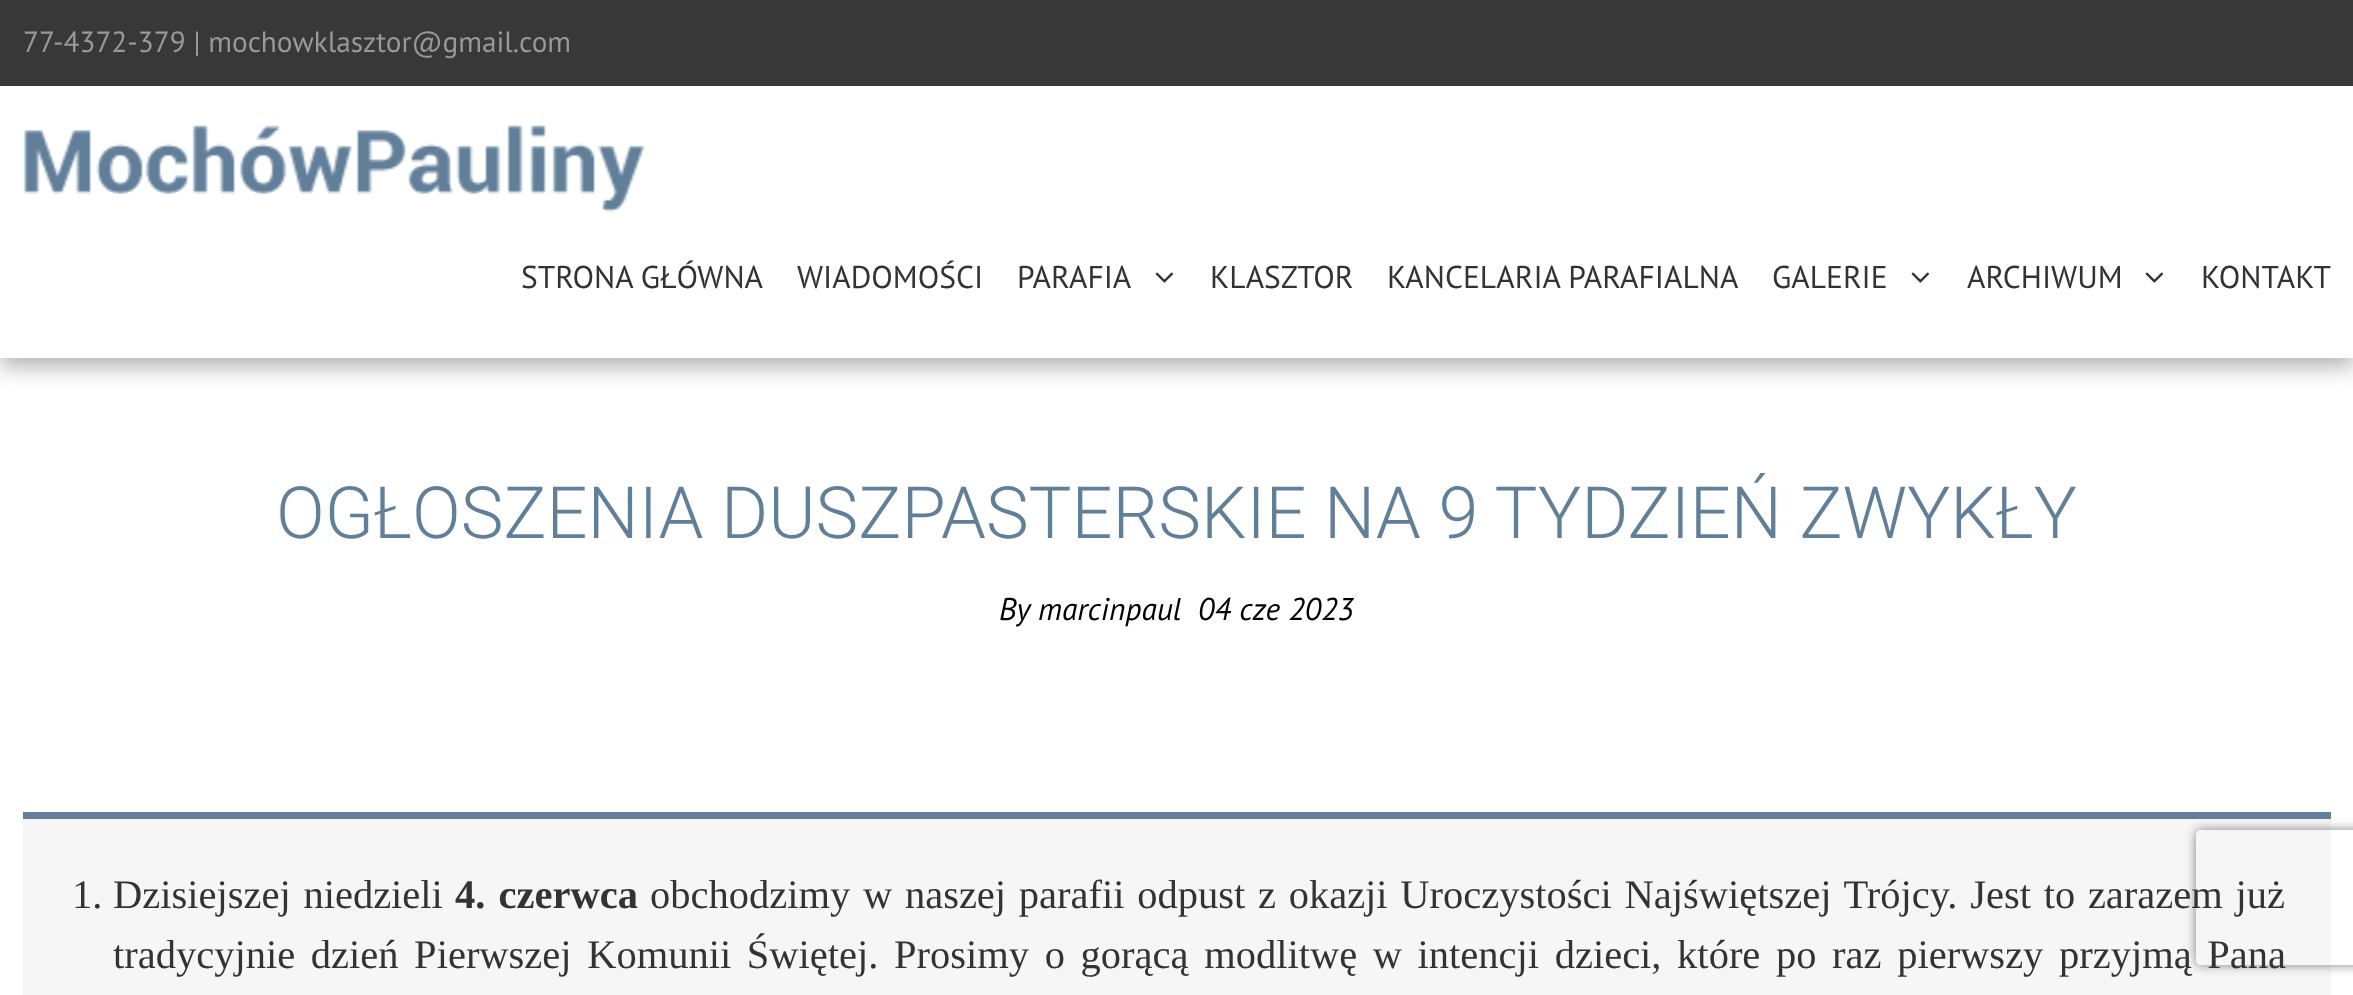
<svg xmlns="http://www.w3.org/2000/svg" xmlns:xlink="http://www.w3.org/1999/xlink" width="2353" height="995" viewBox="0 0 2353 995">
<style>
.cls-1{font:29.25px PT Sans;fill:#999999}
.cls-2{font:31.5px PT Sans;fill:#333333}
.cls-3{font:300 72px Roboto;fill:#627f9a}
.cls-4{font:italic 31.5px PT Sans;fill:#000000}
.cls-5{font:40.5px Liberation Serif;fill:#333333}
.cls-6{font:bold 40.5px Liberation Serif;fill:#333333}
</style>
<defs>
<clipPath id="clip1"><path d="M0 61H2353V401H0ZM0 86H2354V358H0Z" clip-rule="evenodd"/></clipPath>
<clipPath id="clip2"><path d="M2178 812H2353V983H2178ZM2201 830H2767C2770 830 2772 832 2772 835V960C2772 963 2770 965 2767 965H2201C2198 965 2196 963 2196 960V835C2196 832 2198 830 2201 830Z" clip-rule="evenodd"/></clipPath>
</defs>
<rect width="100%" height="100%" fill="#ffffff"/>
<g clip-path="url(#clip1)">
<rect fill="#000000" fill-opacity="0.3" filter="blur(11px)" x="0" y="95" width="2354" height="272"/>
</g>
<rect fill="#383838" x="0" y="0" width="2353" height="86"/>
<rect fill="#ffffff" fill-opacity="0.6" x="0" y="357" width="2353" height="1"/>
<image xlink:href="image0.png" x="23" y="125" width="622" height="87"/>
<image xlink:href="image1.png" x="1155" y="272" width="19" height="11"/>
<image xlink:href="image1.png" x="1911" y="272" width="19" height="11"/>
<image xlink:href="image1.png" x="2145" y="272" width="19" height="11"/>
<rect fill="#f6f6f6" x="23" y="819" width="2308" height="176"/>
<rect fill="#627f9a" x="23" y="812" width="2308" height="7"/>
<g clip-path="url(#clip2)">
<rect fill="#808080" filter="blur(5.5px)" x="2196" y="830" width="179" height="135" rx="5"/>
</g>
<text class="cls-1" x="23" y="52">77-4372-379 | mochowklasztor@gmail.com</text>
<text class="cls-2" x="521" y="288">STRONA GŁÓWNA</text>
<text class="cls-2" x="797" y="288">WIADOMOŚCI</text>
<text class="cls-2" x="1017" y="288">PARAFIA</text>
<text class="cls-2" x="1210" y="288">KLASZTOR</text>
<text class="cls-2" x="1387" y="288">KANCELARIA PARAFIALNA</text>
<text class="cls-2" x="1772" y="288">GALERIE</text>
<text class="cls-2" x="1967" y="288">ARCHIWUM</text>
<text class="cls-2" x="2201" y="288">KONTAKT</text>
<text class="cls-3" x="276" y="538">OGŁOSZENIA DUSZPASTERSKIE NA 9 TYDZIEŃ ZWYKŁY</text>
<text class="cls-4" x="999" y="620">By marcinpaul</text>
<text class="cls-4" x="1198" y="620">04 cze 2023</text>
<text class="cls-5" x="72" y="908">1.</text>
<text class="cls-5" x="113" y="908" word-spacing="2.6">Dzisiejszej niedzieli</text>
<text class="cls-6" x="455" y="908" word-spacing="3">4. czerwca</text>
<text class="cls-5" x="650" y="908" word-spacing="2.6">obchodzimy w naszej parafii odpust z okazji Uroczystości Najświętszej Trójcy. Jest to zarazem już</text>
<text class="cls-5" x="113" y="968" word-spacing="5.5">tradycyjnie dzień Pierwszej Komunii Świętej. Prosimy o gorącą modlitwę w intencji dzieci, które po raz pierwszy przyjmą Pana</text>
</svg>
